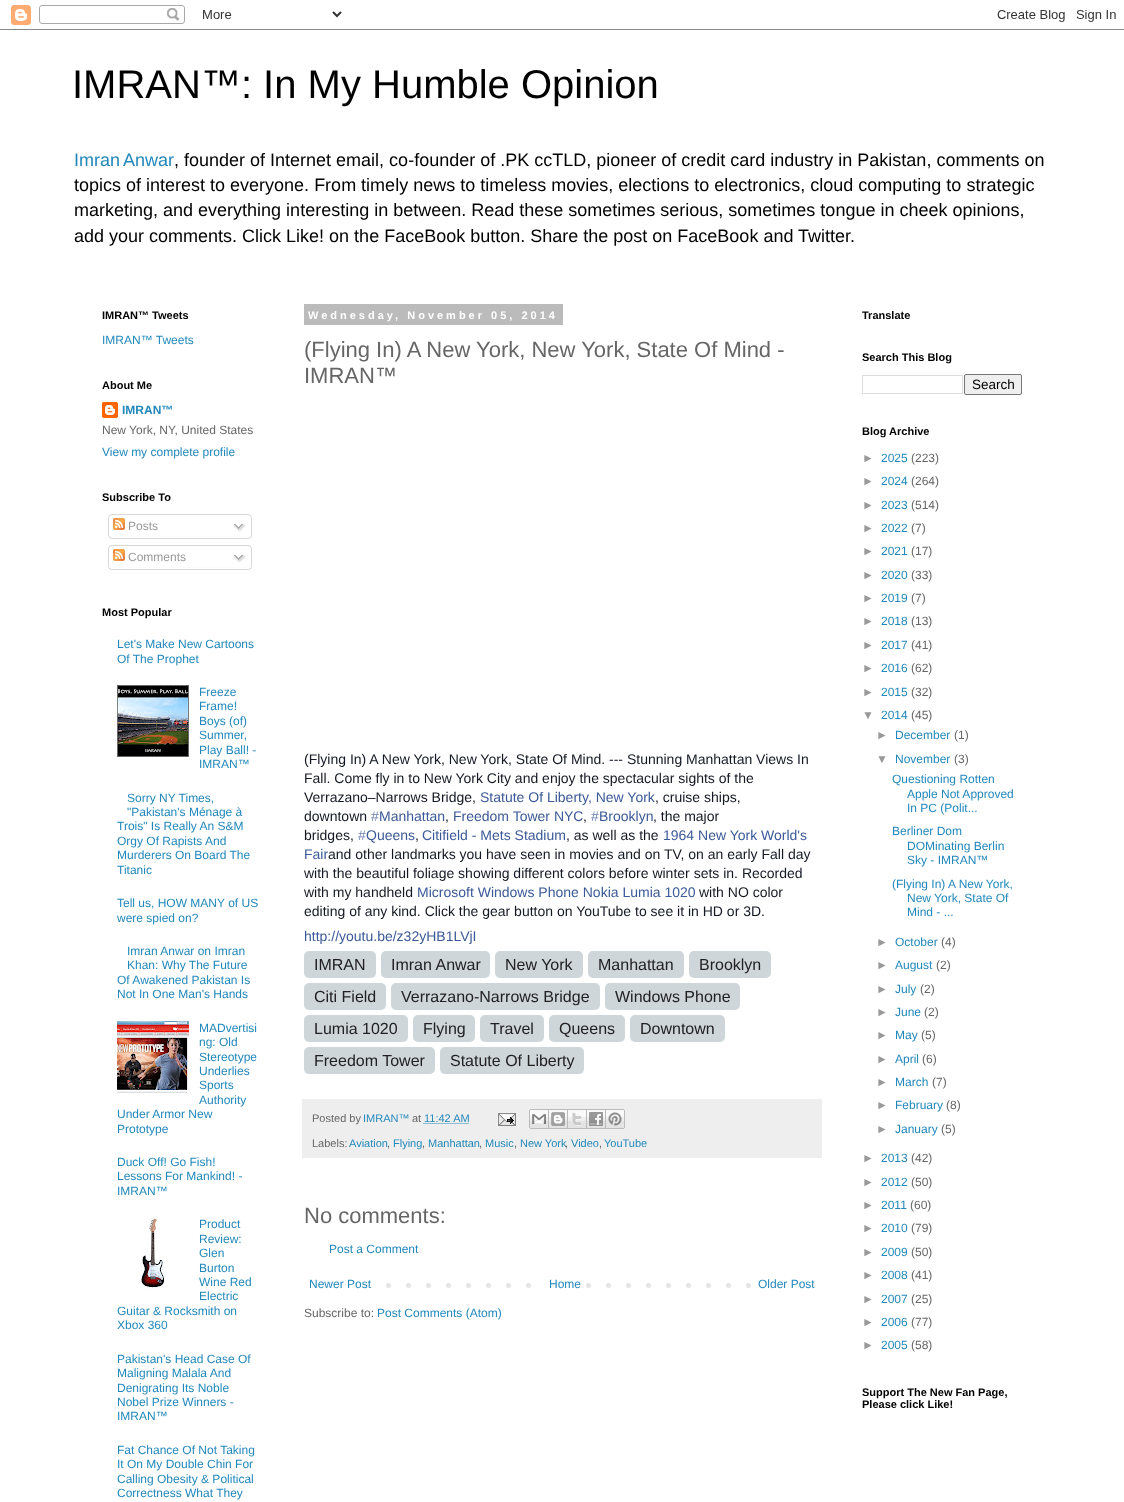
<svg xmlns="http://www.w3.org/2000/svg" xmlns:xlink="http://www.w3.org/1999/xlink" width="1124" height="1502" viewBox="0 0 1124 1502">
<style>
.cls-1{font:40px Liberation Sans;fill:#000000}
.cls-2{font:18px Liberation Sans;fill:#2288bb}
.cls-3{font:18px Liberation Sans;fill:#000000}
.cls-4{font:bold 11px Liberation Sans;fill:#000000}
.cls-5{font:12px Liberation Sans;fill:#2288bb}
.cls-6{font:bold 12px Liberation Sans;fill:#2288bb}
.cls-7{font:12px Liberation Sans;fill:#666666}
.cls-8{font:12px Liberation Sans;fill:#999999}
.cls-9{font:bold 11px Liberation Sans;letter-spacing:3px;fill:#ffffff}
.cls-10{font:22px Liberation Sans;fill:#666666}
.cls-11{font:14px Liberation Sans;fill:#141823}
.cls-12{font:14px Liberation Sans;fill:#3b5998}
.cls-13{font:14px Liberation Sans;fill:#6d84b4}
.cls-14{font:16px Liberation Sans;fill:#212124}
.cls-15{font:11px Liberation Sans;fill:#666666}
.cls-16{font:11px Liberation Sans;fill:#2288bb}
.cls-17{font:13.5px Liberation Sans;fill:#000000}
</style>
<rect width="100%" height="100%" fill="#ffffff"/>
<image xlink:href="image0.png" x="0" y="5" width="1124" height="25"/>
<image xlink:href="image1.png" x="102" y="402" width="16" height="16"/>
<image xlink:href="image2.png" x="108" y="514" width="144" height="22"/>
<image xlink:href="image3.png" x="113" y="518" width="12" height="12"/>
<image xlink:href="image4.png" x="233" y="523" width="13" height="9"/>
<image xlink:href="image5.png" x="108" y="536" width="144" height="3"/>
<image xlink:href="image2.png" x="108" y="545" width="144" height="22"/>
<image xlink:href="image3.png" x="113" y="549" width="12" height="12"/>
<image xlink:href="image4.png" x="233" y="554" width="13" height="9"/>
<image xlink:href="image5.png" x="108" y="567" width="144" height="3"/>
<image xlink:href="image6.png" x="117" y="685" width="72" height="72"/>
<image xlink:href="image7.png" x="117" y="1021" width="72" height="72"/>
<image xlink:href="image8.png" x="141" y="1217" width="24" height="72"/>
<rect fill="#bbbbbb" x="304" y="304" width="259" height="21"/>
<rect fill="#cfd6d9" x="304" y="951" width="72" height="27" rx="5"/>
<rect fill="#cfd6d9" x="381" y="951" width="109" height="27" rx="5"/>
<rect fill="#cfd6d9" x="495" y="951" width="88" height="27" rx="5"/>
<rect fill="#cfd6d9" x="588" y="951" width="96" height="27" rx="5"/>
<rect fill="#cfd6d9" x="689" y="951" width="82" height="27" rx="5"/>
<rect fill="#cfd6d9" x="304" y="983" width="82" height="27" rx="5"/>
<rect fill="#cfd6d9" x="391" y="983" width="209" height="27" rx="5"/>
<rect fill="#cfd6d9" x="605" y="983" width="135" height="27" rx="5"/>
<rect fill="#cfd6d9" x="304" y="1015" width="104" height="27" rx="5"/>
<rect fill="#cfd6d9" x="413" y="1015" width="62" height="27" rx="5"/>
<rect fill="#cfd6d9" x="480" y="1015" width="64" height="27" rx="5"/>
<rect fill="#cfd6d9" x="549" y="1015" width="76" height="27" rx="5"/>
<rect fill="#cfd6d9" x="630" y="1015" width="95" height="27" rx="5"/>
<rect fill="#cfd6d9" x="304" y="1047" width="131" height="27" rx="5"/>
<rect fill="#cfd6d9" x="440" y="1047" width="144" height="27" rx="5"/>
<rect fill="#eeeeee" x="302" y="1099" width="520" height="59"/>
<path fill="none" stroke="#2288bb" stroke-dasharray="1 1" d="M423.5 1123.5H468.5"/>
<image xlink:href="image9.png" x="498" y="1113" width="18" height="13"/>
<image xlink:href="image10.png" x="529" y="1109" width="20" height="20"/>
<image xlink:href="image11.png" x="549" y="1109" width="19" height="20"/>
<image xlink:href="image12.png" x="568" y="1109" width="19" height="20"/>
<image xlink:href="image13.png" x="587" y="1109" width="19" height="20"/>
<image xlink:href="image14.png" x="606" y="1109" width="19" height="20"/>
<image xlink:href="image15.png" x="386" y="1283" width="365" height="5"/>
<rect fill="#ffffff" x="546" y="1283" width="26" height="5"/>
<rect fill="none" stroke="#dddddd" x="862.5" y="375.5" width="100" height="18"/>
<rect fill="#efefef" stroke="#767676" x="964.5" y="374.5" width="57" height="20" rx="1.5"/>
<text class="cls-1" x="72" y="98">IMRAN™: In My Humble Opinion</text>
<text class="cls-2" x="74" y="166" word-spacing="-1">Imran Anwar</text>
<text class="cls-3" x="174" y="166">, founder of Internet email, co-founder of .PK ccTLD, pioneer of credit card industry in Pakistan, comments on</text>
<text class="cls-3"><tspan x="74" y="191">topics of interest to everyone. From timely news to timeless movies, elections to electronics, cloud computing to strategic</tspan><tspan x="74" y="216">marketing, and everything interesting in between. Read these sometimes serious, sometimes tongue in cheek opinions,</tspan><tspan x="74" y="242">add your comments. Click Like! on the FaceBook button. Share the post on FaceBook and Twitter.</tspan></text>
<text class="cls-4" x="102" y="319">IMRAN™ Tweets</text>
<text class="cls-5" x="102" y="344">IMRAN™ Tweets</text>
<text class="cls-4" x="102" y="389">About Me</text>
<text class="cls-6" x="122" y="414">IMRAN™</text>
<text class="cls-7" x="102" y="434">New York, NY, United States</text>
<text class="cls-5" x="102" y="456">View my complete profile</text>
<text class="cls-4" x="102" y="501">Subscribe To</text>
<text class="cls-8" x="128" y="530">Posts</text>
<text class="cls-8" x="128" y="561">Comments</text>
<text class="cls-4" x="102" y="616">Most Popular</text>
<text class="cls-5"><tspan x="117" y="648">Let's Make New Cartoons</tspan><tspan x="117" y="663">Of The Prophet</tspan></text>
<text class="cls-5"><tspan x="199" y="696">Freeze</tspan><tspan x="199" y="710">Frame!</tspan><tspan x="199" y="725">Boys (of)</tspan><tspan x="199" y="739">Summer,</tspan><tspan x="199" y="754">Play Ball! -</tspan><tspan x="199" y="768">IMRAN™</tspan></text>
<text class="cls-5"><tspan x="127" y="802">Sorry NY Times,</tspan><tspan x="127" y="816">"Pakistan's Ménage à</tspan></text>
<text class="cls-5"><tspan x="117" y="830">Trois" Is Really An S&amp;M</tspan><tspan x="117" y="845">Orgy Of Rapists And</tspan><tspan x="117" y="859">Murderers On Board The</tspan><tspan x="117" y="874">Titanic</tspan></text>
<text class="cls-5"><tspan x="117" y="907">Tell us, HOW MANY of US</tspan><tspan x="117" y="922">were spied on?</tspan></text>
<text class="cls-5"><tspan x="127" y="955">Imran Anwar on Imran</tspan><tspan x="127" y="969">Khan: Why The Future</tspan></text>
<text class="cls-5"><tspan x="117" y="984">Of Awakened Pakistan Is</tspan><tspan x="117" y="998">Not In One Man's Hands</tspan></text>
<text class="cls-5"><tspan x="199" y="1032">MADvertisi</tspan><tspan x="199" y="1046">ng: Old</tspan><tspan x="199" y="1061">Stereotype</tspan><tspan x="199" y="1075">Underlies</tspan><tspan x="199" y="1089">Sports</tspan><tspan x="199" y="1104">Authority</tspan></text>
<text class="cls-5"><tspan x="117" y="1118">Under Armor New</tspan><tspan x="117" y="1133">Prototype</tspan></text>
<text class="cls-5"><tspan x="117" y="1166">Duck Off! Go Fish!</tspan><tspan x="117" y="1180">Lessons For Mankind! -</tspan><tspan x="117" y="1195">IMRAN™</tspan></text>
<text class="cls-5"><tspan x="199" y="1228">Product</tspan><tspan x="199" y="1243">Review:</tspan><tspan x="199" y="1257">Glen</tspan><tspan x="199" y="1272">Burton</tspan><tspan x="199" y="1286">Wine Red</tspan><tspan x="199" y="1300">Electric</tspan></text>
<text class="cls-5"><tspan x="117" y="1315">Guitar &amp; Rocksmith on</tspan><tspan x="117" y="1329">Xbox 360</tspan></text>
<text class="cls-5"><tspan x="117" y="1363">Pakistan's Head Case Of</tspan><tspan x="117" y="1377">Maligning Malala And</tspan><tspan x="117" y="1392">Denigrating Its Noble</tspan><tspan x="117" y="1406">Nobel Prize Winners -</tspan><tspan x="117" y="1420">IMRAN™</tspan></text>
<text class="cls-5"><tspan x="117" y="1454">Fat Chance Of Not Taking</tspan><tspan x="117" y="1468">It On My Double Chin For</tspan><tspan x="117" y="1483">Calling Obesity &amp; Political</tspan><tspan x="117" y="1497">Correctness What They</tspan></text>
<text class="cls-9" x="308" y="319">Wednesday, November 05, 2014</text>
<text class="cls-10"><tspan x="304" y="357">(Flying In) A New York, New York, State Of Mind -</tspan><tspan x="304" y="383">IMRAN™</tspan></text>
<text class="cls-11"><tspan x="304" y="764">(Flying In) A New York, New York, State Of Mind. --- Stunning Manhattan Views In</tspan><tspan x="304" y="783">Fall. Come fly in to New York City and enjoy the spectacular sights of the</tspan><tspan x="304" y="802">Verrazano–Narrows Bridge,</tspan></text>
<text class="cls-12" x="480" y="802">Statute Of Liberty, New York</text>
<text class="cls-11" x="655" y="802">, cruise ships,</text>
<text class="cls-11" x="304" y="821">downtown</text>
<text class="cls-13" x="371" y="821">#</text>
<text class="cls-12" x="379" y="821">Manhattan</text>
<text class="cls-11" x="445" y="821">,</text>
<text class="cls-12" x="453" y="821">Freedom Tower NYC</text>
<text class="cls-11" x="583" y="821">,</text>
<text class="cls-13" x="591" y="821">#</text>
<text class="cls-12" x="599" y="821">Brooklyn</text>
<text class="cls-11" x="653" y="821">, the major</text>
<text class="cls-11" x="304" y="840">bridges,</text>
<text class="cls-13" x="358" y="840">#</text>
<text class="cls-12" x="366" y="840">Queens</text>
<text class="cls-11" x="415" y="840">,</text>
<text class="cls-12" x="422" y="840">Citifield - Mets Stadium</text>
<text class="cls-11" x="566" y="840">, as well as the</text>
<text class="cls-12" x="663" y="840">1964 New York World's</text>
<text class="cls-12" x="304" y="859">Fair</text>
<text class="cls-11" x="328" y="859">and other landmarks you have seen in movies and on TV, on an early Fall day</text>
<text class="cls-11"><tspan x="304" y="878">with the beautiful foliage showing different colors before winter sets in. Recorded</tspan><tspan x="304" y="897">with my handheld</tspan></text>
<text class="cls-12" x="417" y="897">Microsoft Windows Phone Nokia Lumia 1020</text>
<text class="cls-11" x="699" y="897">with NO color</text>
<text class="cls-11" x="304" y="916">editing of any kind. Click the gear button on YouTube to see it in HD or 3D.</text>
<text class="cls-12" x="304" y="941">http://youtu.be/z32yHB1LVjI</text>
<text class="cls-14" x="314" y="970">IMRAN</text>
<text class="cls-14" x="391" y="970">Imran Anwar</text>
<text class="cls-14" x="505" y="970">New York</text>
<text class="cls-14" x="598" y="970">Manhattan</text>
<text class="cls-14" x="699" y="970">Brooklyn</text>
<text class="cls-14" x="314" y="1002">Citi Field</text>
<text class="cls-14" x="401" y="1002">Verrazano-Narrows Bridge</text>
<text class="cls-14" x="615" y="1002">Windows Phone</text>
<text class="cls-14" x="314" y="1034">Lumia 1020</text>
<text class="cls-14" x="423" y="1034">Flying</text>
<text class="cls-14" x="490" y="1034">Travel</text>
<text class="cls-14" x="559" y="1034">Queens</text>
<text class="cls-14" x="640" y="1034">Downtown</text>
<text class="cls-14" x="314" y="1066">Freedom Tower</text>
<text class="cls-14" x="450" y="1066">Statute Of Liberty</text>
<text class="cls-15" x="312" y="1122">Posted by</text>
<text class="cls-16" x="363" y="1122">IMRAN™</text>
<text class="cls-15" x="412" y="1122">at</text>
<text class="cls-16" x="424" y="1122">11:42 AM</text>
<text class="cls-15" x="312" y="1147">Labels:</text>
<text class="cls-16" x="349" y="1147">Aviation</text>
<text class="cls-15" x="387" y="1147">,</text>
<text class="cls-16" x="393" y="1147">Flying</text>
<text class="cls-15" x="422" y="1147">,</text>
<text class="cls-16" x="428" y="1147">Manhattan</text>
<text class="cls-15" x="479" y="1147">,</text>
<text class="cls-16" x="485" y="1147">Music</text>
<text class="cls-15" x="514" y="1147">,</text>
<text class="cls-16" x="520" y="1147">New York</text>
<text class="cls-15" x="565" y="1147">,</text>
<text class="cls-16" x="571" y="1147">Video</text>
<text class="cls-15" x="599" y="1147">,</text>
<text class="cls-16" x="604" y="1147">YouTube</text>
<text class="cls-10" x="304" y="1223">No comments:</text>
<text class="cls-5" x="329" y="1253">Post a Comment</text>
<text class="cls-5" x="309" y="1288">Newer Post</text>
<text class="cls-5" x="549" y="1288">Home</text>
<text class="cls-5" x="758" y="1288">Older Post</text>
<text class="cls-7" x="304" y="1317">Subscribe to:</text>
<text class="cls-5" x="377" y="1317">Post Comments (Atom)</text>
<text class="cls-4" x="862" y="319">Translate</text>
<text class="cls-4" x="862" y="361">Search This Blog</text>
<text class="cls-17" x="972" y="389">Search</text>
<text class="cls-4" x="862" y="435">Blog Archive</text>
<text class="cls-8" x="862" y="462">►</text>
<text class="cls-5" x="881" y="462">2025</text>
<text class="cls-7" x="911" y="462">(223)</text>
<text class="cls-8" x="862" y="485">►</text>
<text class="cls-5" x="881" y="485">2024</text>
<text class="cls-7" x="911" y="485">(264)</text>
<text class="cls-8" x="862" y="509">►</text>
<text class="cls-5" x="881" y="509">2023</text>
<text class="cls-7" x="911" y="509">(514)</text>
<text class="cls-8" x="862" y="532">►</text>
<text class="cls-5" x="881" y="532">2022</text>
<text class="cls-7" x="911" y="532">(7)</text>
<text class="cls-8" x="862" y="555">►</text>
<text class="cls-5" x="881" y="555">2021</text>
<text class="cls-7" x="911" y="555">(17)</text>
<text class="cls-8" x="862" y="579">►</text>
<text class="cls-5" x="881" y="579">2020</text>
<text class="cls-7" x="911" y="579">(33)</text>
<text class="cls-8" x="862" y="602">►</text>
<text class="cls-5" x="881" y="602">2019</text>
<text class="cls-7" x="911" y="602">(7)</text>
<text class="cls-8" x="862" y="625">►</text>
<text class="cls-5" x="881" y="625">2018</text>
<text class="cls-7" x="911" y="625">(13)</text>
<text class="cls-8" x="862" y="649">►</text>
<text class="cls-5" x="881" y="649">2017</text>
<text class="cls-7" x="911" y="649">(41)</text>
<text class="cls-8" x="862" y="672">►</text>
<text class="cls-5" x="881" y="672">2016</text>
<text class="cls-7" x="911" y="672">(62)</text>
<text class="cls-8" x="862" y="696">►</text>
<text class="cls-5" x="881" y="696">2015</text>
<text class="cls-7" x="911" y="696">(32)</text>
<text class="cls-8" x="862" y="719">▼</text>
<text class="cls-5" x="881" y="719">2014</text>
<text class="cls-7" x="911" y="719">(45)</text>
<text class="cls-8" x="876" y="739">►</text>
<text class="cls-5" x="895" y="739">December</text>
<text class="cls-7" x="954" y="739">(1)</text>
<text class="cls-8" x="876" y="763">▼</text>
<text class="cls-5" x="895" y="763">November</text>
<text class="cls-7" x="954" y="763">(3)</text>
<text class="cls-5" x="892" y="783">Questioning Rotten</text>
<text class="cls-5"><tspan x="907" y="798">Apple Not Approved</tspan><tspan x="907" y="812">In PC (Polit...</tspan></text>
<text class="cls-5" x="892" y="835">Berliner Dom</text>
<text class="cls-5"><tspan x="907" y="850">DOMinating Berlin</tspan><tspan x="907" y="864">Sky - IMRAN™</tspan></text>
<text class="cls-5" x="892" y="888">(Flying In) A New York,</text>
<text class="cls-5"><tspan x="907" y="902">New York, State Of</tspan><tspan x="907" y="916">Mind - ...</tspan></text>
<text class="cls-8" x="876" y="946">►</text>
<text class="cls-5" x="895" y="946">October</text>
<text class="cls-7" x="941" y="946">(4)</text>
<text class="cls-8" x="876" y="969">►</text>
<text class="cls-5" x="895" y="969">August</text>
<text class="cls-7" x="936" y="969">(2)</text>
<text class="cls-8" x="876" y="993">►</text>
<text class="cls-5" x="895" y="993">July</text>
<text class="cls-7" x="920" y="993">(2)</text>
<text class="cls-8" x="876" y="1016">►</text>
<text class="cls-5" x="895" y="1016">June</text>
<text class="cls-7" x="924" y="1016">(2)</text>
<text class="cls-8" x="876" y="1039">►</text>
<text class="cls-5" x="895" y="1039">May</text>
<text class="cls-7" x="921" y="1039">(5)</text>
<text class="cls-8" x="876" y="1063">►</text>
<text class="cls-5" x="895" y="1063">April</text>
<text class="cls-7" x="922" y="1063">(6)</text>
<text class="cls-8" x="876" y="1086">►</text>
<text class="cls-5" x="895" y="1086">March</text>
<text class="cls-7" x="932" y="1086">(7)</text>
<text class="cls-8" x="876" y="1109">►</text>
<text class="cls-5" x="895" y="1109">February</text>
<text class="cls-7" x="946" y="1109">(8)</text>
<text class="cls-8" x="876" y="1133">►</text>
<text class="cls-5" x="895" y="1133">January</text>
<text class="cls-7" x="941" y="1133">(5)</text>
<text class="cls-8" x="862" y="1162">►</text>
<text class="cls-5" x="881" y="1162">2013</text>
<text class="cls-7" x="911" y="1162">(42)</text>
<text class="cls-8" x="862" y="1186">►</text>
<text class="cls-5" x="881" y="1186">2012</text>
<text class="cls-7" x="911" y="1186">(50)</text>
<text class="cls-8" x="862" y="1209">►</text>
<text class="cls-5" x="881" y="1209">2011</text>
<text class="cls-7" x="910" y="1209">(60)</text>
<text class="cls-8" x="862" y="1232">►</text>
<text class="cls-5" x="881" y="1232">2010</text>
<text class="cls-7" x="911" y="1232">(79)</text>
<text class="cls-8" x="862" y="1256">►</text>
<text class="cls-5" x="881" y="1256">2009</text>
<text class="cls-7" x="911" y="1256">(50)</text>
<text class="cls-8" x="862" y="1279">►</text>
<text class="cls-5" x="881" y="1279">2008</text>
<text class="cls-7" x="911" y="1279">(41)</text>
<text class="cls-8" x="862" y="1303">►</text>
<text class="cls-5" x="881" y="1303">2007</text>
<text class="cls-7" x="911" y="1303">(25)</text>
<text class="cls-8" x="862" y="1326">►</text>
<text class="cls-5" x="881" y="1326">2006</text>
<text class="cls-7" x="911" y="1326">(77)</text>
<text class="cls-8" x="862" y="1349">►</text>
<text class="cls-5" x="881" y="1349">2005</text>
<text class="cls-7" x="911" y="1349">(58)</text>
<text class="cls-4"><tspan x="862" y="1396">Support The New Fan Page,</tspan><tspan x="862" y="1408">Please click Like!</tspan></text>
</svg>
